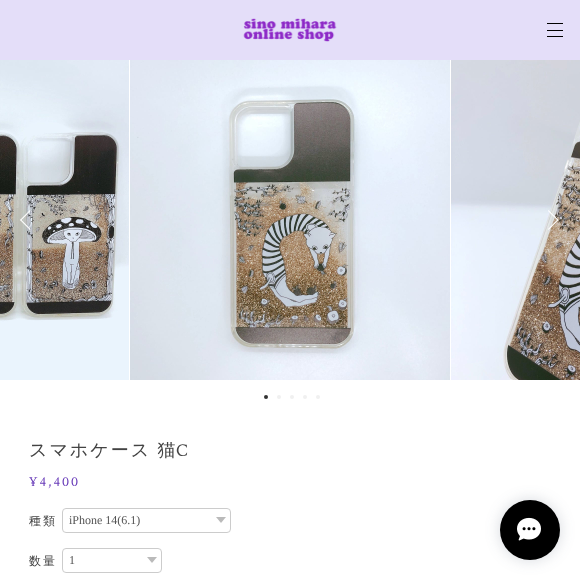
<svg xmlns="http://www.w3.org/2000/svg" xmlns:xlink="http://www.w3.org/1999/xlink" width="580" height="580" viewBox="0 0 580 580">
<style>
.cls-1{font:500 18px WenQuanYi Zen Hei;letter-spacing:2px;fill:#434343}
.cls-2{font:18px Crimson Text;letter-spacing:2px;fill:#434343}
.cls-3{font:14px Crimson Text;letter-spacing:2px;fill:#673ab8}
.cls-4{font:500 12px WenQuanYi Zen Hei;letter-spacing:2px;fill:#434343}
.cls-5{font:12px Liberation Serif;fill:#555555}
</style>
<rect width="100%" height="100%" fill="#ffffff"/>
<rect fill="#e4def9" x="0" y="0" width="580" height="60"/>
<image xlink:href="image0.png" x="243" y="18" width="94" height="24"/>
<rect fill="#000000" x="547" y="23" width="16" height="1"/>
<rect fill="#000000" x="547" y="30" width="16" height="1"/>
<rect fill="#000000" x="547" y="36" width="16" height="1"/>
<image xlink:href="image1.png" x="0" y="60" width="129" height="320"/>
<image xlink:href="image2.png" x="130" y="60" width="320" height="320"/>
<image xlink:href="image3.png" x="451" y="60" width="129" height="320"/>
<path fill="#ffffff" d="M21 219.5L30.5 229L30 230L20 220Z"/>
<path fill="#ffffff" d="M30 210L30.5 211L21 220.5L20 220Z"/>
<path fill="#ffffff" d="M548.5 210L558.5 220L557.5 220.5L548 211Z"/>
<path fill="#ffffff" d="M557.5 219.5L558.5 220L548.5 230L548 229Z"/>
<circle fill="#333333" cx="266" cy="397" r="2"/>
<circle fill="#f0f0f0" cx="279" cy="397" r="2"/>
<circle fill="#f0f0f0" cx="292" cy="397" r="2"/>
<circle fill="#f0f0f0" cx="305" cy="397" r="2"/>
<circle fill="#f0f0f0" cx="318" cy="397" r="2"/>
<image xlink:href="image4.png" x="216" y="517" width="10" height="6"/>
<rect fill="none" stroke="#cccccc" x="62.5" y="508.5" width="168" height="24" rx="3.5"/>
<image xlink:href="image4.png" x="147" y="557" width="10" height="6"/>
<rect fill="none" stroke="#cccccc" x="62.5" y="548.5" width="99" height="24" rx="3.5"/>
<rect fill="#334258" fill-opacity="0.2" filter="blur(7.5px)" x="500" y="500" width="60" height="60" rx="30"/>
<circle fill="#000000" cx="530" cy="530" r="30"/>
<image xlink:href="image5.png" x="517" y="517" width="24" height="24"/>
<text class="cls-1" x="29" y="456" word-spacing="-1">スマホケース 猫</text>
<text class="cls-2" x="176" y="456">C</text>
<text class="cls-3" x="29" y="486">¥4,400</text>
<text class="cls-4" x="29" y="525">種類</text>
<text class="cls-5" x="69" y="524">iPhone 14(6.1)</text>
<text class="cls-4" x="29" y="565">数量</text>
<text class="cls-5" x="69" y="564">1</text>
</svg>
